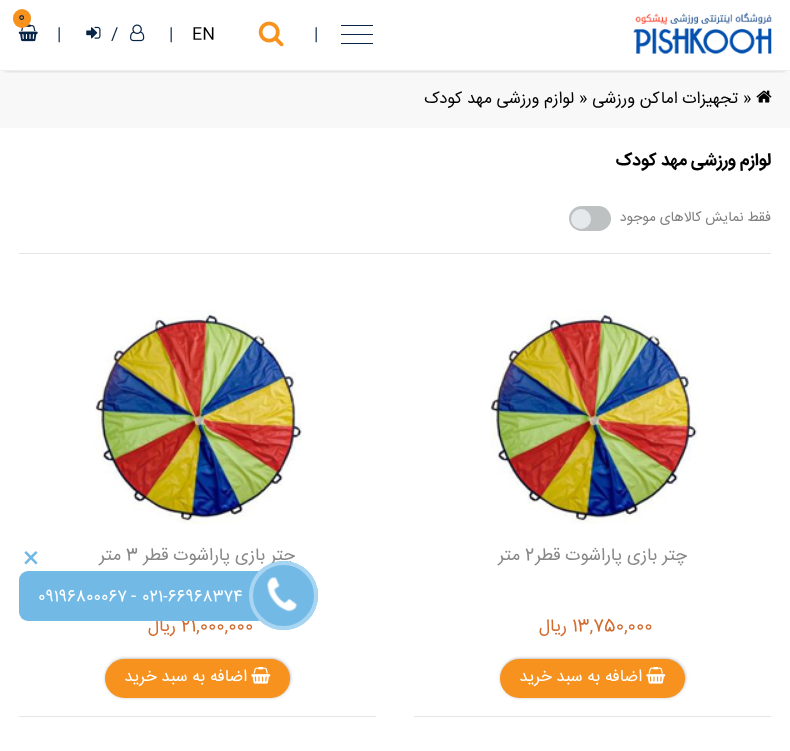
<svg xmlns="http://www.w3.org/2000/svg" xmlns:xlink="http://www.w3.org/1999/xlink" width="790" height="751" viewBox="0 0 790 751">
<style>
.cls-1{font:15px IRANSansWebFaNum;fill:#072446}
.cls-2{font:16.6px IRANSansWebFaNum;fill:#072446}
.cls-3{font:16.6px IRANSansWebFaNum;fill:#000000}
.cls-4{font:16.6px IRANSansWebFaNum;direction:rtl;fill:#000000}
.cls-5{font:bold 17.5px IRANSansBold;direction:rtl;fill:#000000}
.cls-6{font:14px IRANSansWebFaNum;direction:rtl;fill:#808082}
.cls-7{font:17.5px IRANSansWebFaNum;fill:#888888}
.cls-8{font:17.5px IRANSansWebFaNum;direction:rtl;fill:#888888}
.cls-9{font:17.5px IRANSansWebFaNum;fill:#d16b2f}
.cls-10{font:17.5px IRANSansWebFaNum;direction:rtl;fill:#d16b2f}
.cls-11{font:16.6px IRANSansWebFaNum;direction:rtl;fill:#ffffff}
.cls-12{font:28px IRANSansWebFaNum;fill:#72b9e6}
.cls-13{font:15.75px IRANSansWebFaNum;fill:#ffffff}
.cls-14{font:17.5px IRANSansWebFaNum;fill:#ffffff}
</style>
<defs>
<clipPath id="clip1"><rect x="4" y="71" width="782" height="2"/></clipPath>
</defs>
<rect width="100%" height="100%" fill="#ffffff"/>
<rect fill="#f8f8f8" x="0" y="71" width="790" height="57"/>
<g clip-path="url(#clip1)">
<rect fill="#000000" fill-opacity="0.5" filter="blur(3px)" x="4" y="4" width="782" height="64"/>
</g>
<rect fill="#eeeeee" x="0" y="70" width="790" height="1"/>
<image xlink:href="image0.png" x="633" y="12" width="139" height="42"/>
<image xlink:href="image1.png" x="18" y="24" width="20" height="18"/>
<rect fill="#f7921e" x="13" y="9" width="18" height="19" rx="9"/>
<rect fill="#072446" x="341" y="34" width="32" height="1"/>
<rect fill="#072446" x="341" y="25" width="32" height="1"/>
<rect fill="#072446" x="341" y="43" width="32" height="1"/>
<image xlink:href="image2.png" x="258" y="21" width="26" height="26"/>
<image xlink:href="image3.png" x="130" y="24" width="15" height="18"/>
<image xlink:href="image4.png" x="86" y="26" width="15" height="13"/>
<image xlink:href="image5.png" x="756" y="90" width="16" height="13"/>
<rect fill="#e5e5e5" x="19" y="253" width="752" height="1"/>
<rect fill="#bdc1c2" x="569" y="206" width="42" height="25" rx="12.5"/>
<circle fill="#e5e9ec" cx="581" cy="219" r="10"/>
<rect fill="#e5e5e5" x="414" y="716" width="357" height="1"/>
<image xlink:href="image6.png" x="490" y="310" width="207" height="214"/>
<rect fill="#000000" filter="blur(2.5px)" x="503" y="661" width="180" height="34" rx="17"/>
<rect fill="#f7921e" x="500" y="659" width="185" height="39" rx="19.5"/>
<image xlink:href="image7.png" x="646" y="667" width="20" height="17"/>
<rect fill="#e5e5e5" x="19" y="716" width="357" height="1"/>
<image xlink:href="image8.png" x="95" y="310" width="207" height="214"/>
<rect fill="#000000" filter="blur(2.5px)" x="108" y="661" width="180" height="34" rx="17"/>
<rect fill="#f7921e" x="105" y="659" width="185" height="39" rx="19.5"/>
<image xlink:href="image7.png" x="251" y="667" width="20" height="17"/>
<text class="cls-1" x="18" y="21">0</text>
<text class="cls-2" x="314" y="39">|</text>
<text class="cls-3" x="192" y="39">EN</text>
<text class="cls-2" x="169" y="39">|</text>
<text class="cls-2" x="111" y="39">/</text>
<text class="cls-2" x="57" y="39">|</text>
<text class="cls-3" x="743" y="103">»</text>
<text class="cls-4" x="738" y="103">تجهیزات اماکن ورزشی</text>
<text class="cls-3" x="579" y="103">»</text>
<text class="cls-4" x="574" y="103">لوازم ورزشی مهد کودک</text>
<text class="cls-5" x="771" y="165">لوازم ورزشی مهد کودک</text>
<text class="cls-6" x="771" y="221">فقط نمایش کالاهای موجود</text>
<text class="cls-7" x="525" y="560">2</text>
<text class="cls-8" x="687" y="560">چتر بازی پاراشوت قطر</text>
<text class="cls-8" x="520" y="560">متر</text>
<text class="cls-9" x="572" y="631">13,750,000</text>
<text class="cls-10" x="567" y="631">ریال</text>
<text class="cls-11" x="642" y="681">اضافه به سبد خرید</text>
<text class="cls-8" x="295" y="560">چتر بازی پاراشوت قطر</text>
<text class="cls-7" x="126" y="560">3</text>
<text class="cls-8" x="121" y="560">متر</text>
<text class="cls-9" x="181" y="631">21,000,000</text>
<text class="cls-10" x="176" y="631">ریال</text>
<text class="cls-11" x="247" y="681">اضافه به سبد خرید</text>
<rect fill="#72b9e6" x="19" y="571" width="247" height="50" rx="9"/>
<text class="cls-12" x="23" y="566">×</text>
<circle fill="#72b9e6" cx="283.5" cy="595.5" r="34.5"/>
<image xlink:href="image9.png" x="267" y="577" width="30" height="35"/>
<circle fill="none" stroke="#a8d5f2" stroke-width="4" cx="283.5" cy="595.5" r="32.5"/>
<text class="cls-13" x="142" y="601">021-66968374</text>
<text class="cls-14" x="131" y="601">-</text>
<text class="cls-13" x="38" y="601">09196800067</text>
</svg>
